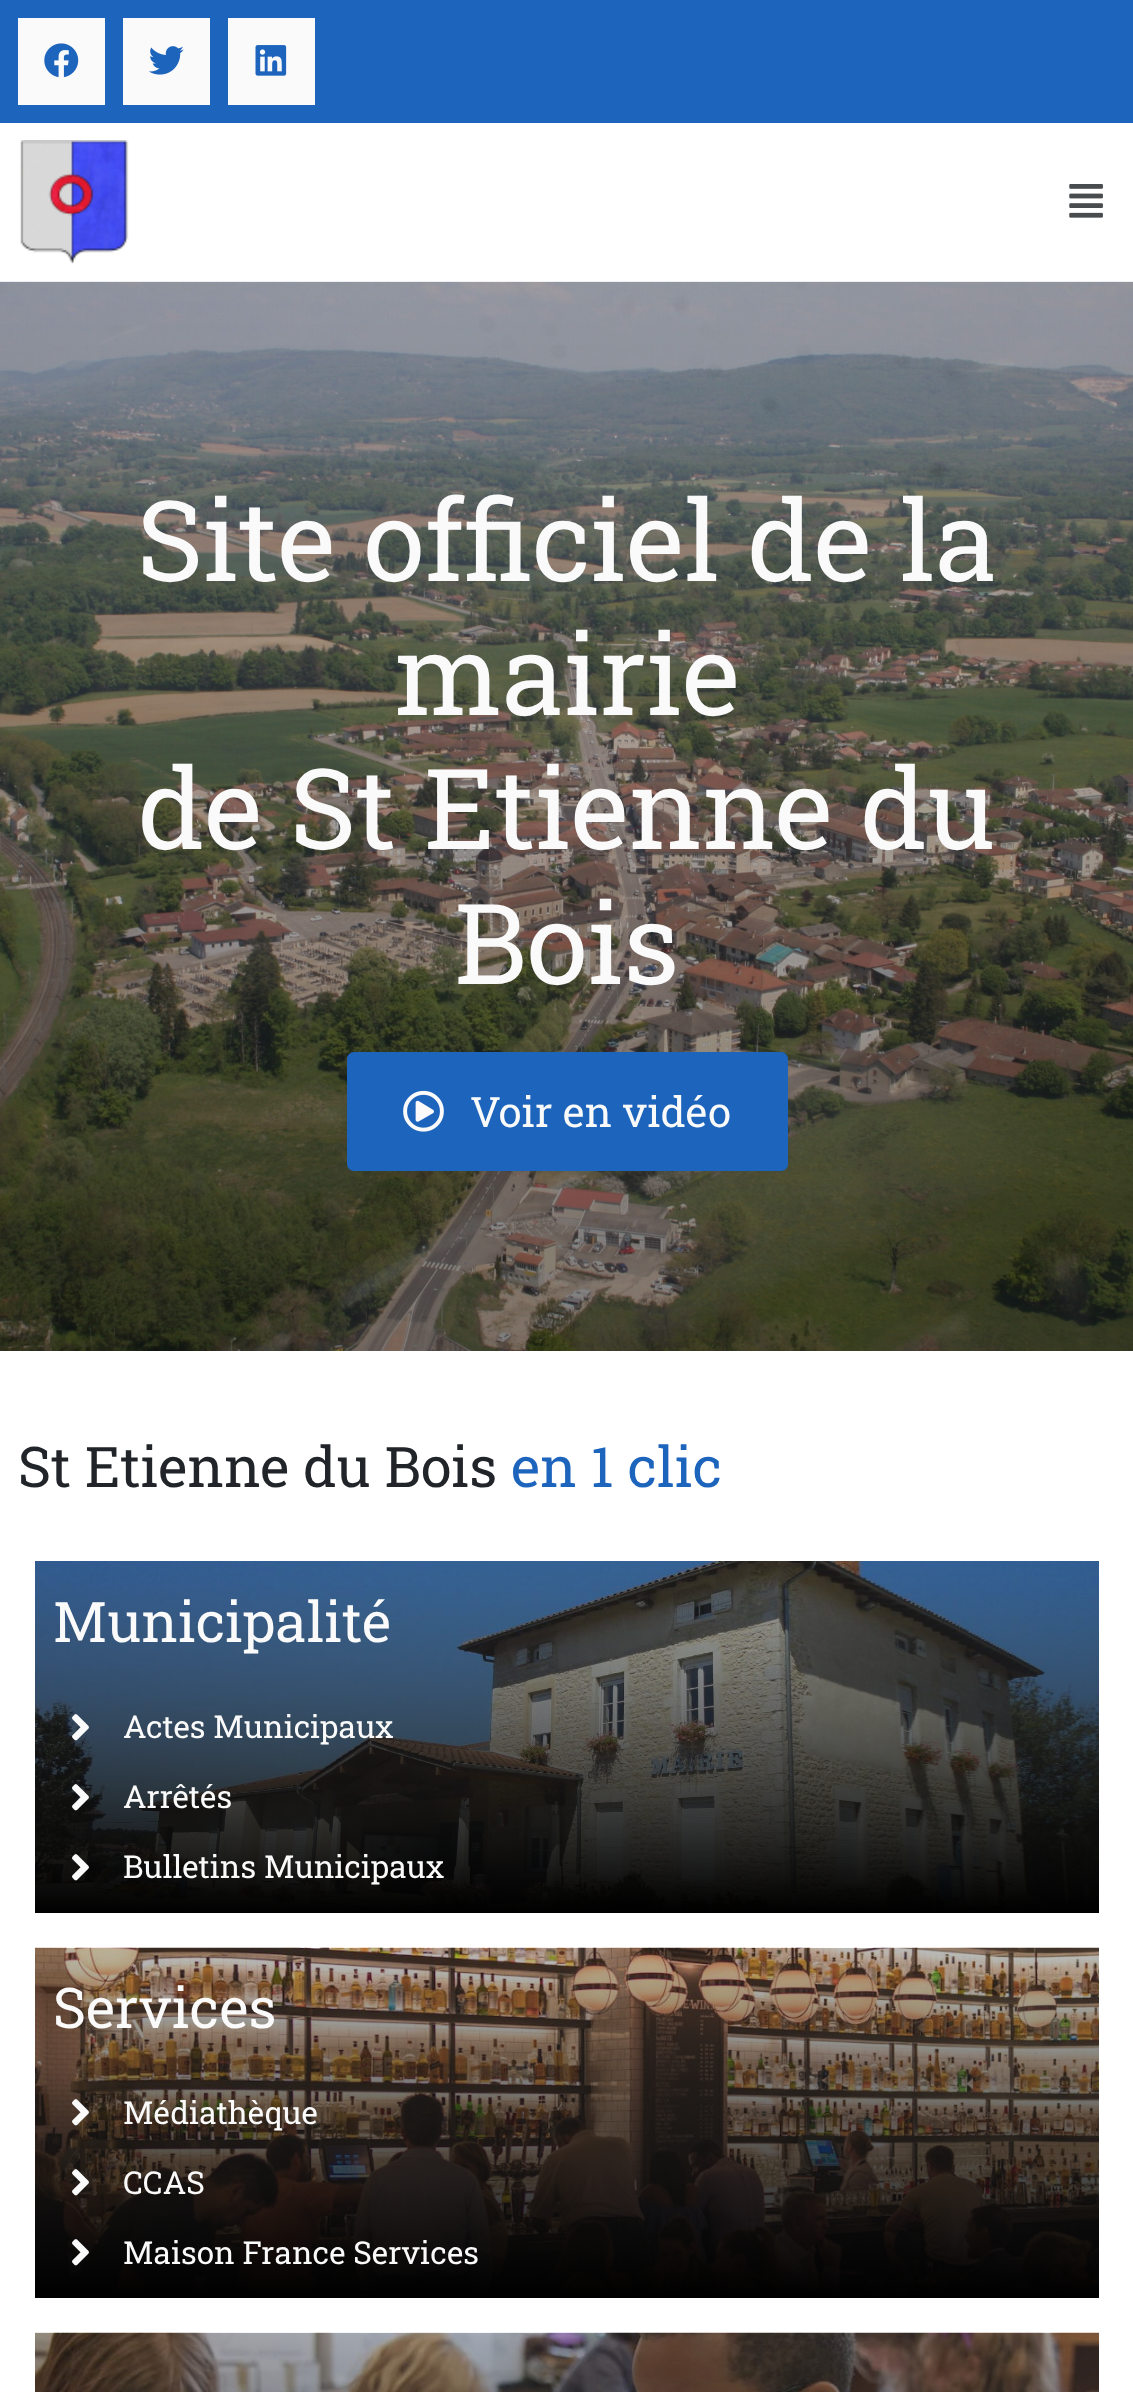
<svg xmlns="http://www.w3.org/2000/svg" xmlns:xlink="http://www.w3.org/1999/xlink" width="1133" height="2392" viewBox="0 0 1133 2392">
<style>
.cls-1{font:112px Roboto Slab;fill:#fafafa}
.cls-2{font:42px Roboto Slab;fill:#fafafa}
.cls-3{font:56px Roboto Slab;fill:#212529}
.cls-4{font:56px Roboto Slab;fill:#1d64bd}
.cls-5{font:56px Roboto Slab;fill:#fafafa}
.cls-6{font:31.5px Roboto Slab;fill:#fafafa}
</style>
<defs>
<linearGradient id="g1" gradientUnits="userSpaceOnUse" x1="567" y1="1561" x2="567" y2="1913"><stop offset="0" stop-color="#333333" stop-opacity="0.33"/><stop offset="1" stop-color="#000000"/></linearGradient>
<linearGradient id="g2" gradientUnits="userSpaceOnUse" x1="567" y1="1948" x2="567" y2="2298"><stop offset="0" stop-color="#333333" stop-opacity="0.33"/><stop offset="1" stop-color="#000000"/></linearGradient>
</defs>
<rect width="100%" height="100%" fill="#ffffff"/>
<rect fill="#1d64bd" x="0" y="0" width="1133" height="123"/>
<rect fill="#fafafa" x="18" y="18" width="87" height="87"/>
<image xlink:href="image0.png" x="44" y="43" width="35" height="35"/>
<rect fill="#fafafa" x="123" y="18" width="87" height="87"/>
<image xlink:href="image1.png" x="149" y="46" width="35" height="29"/>
<rect fill="#fafafa" x="228" y="18" width="87" height="87"/>
<image xlink:href="image2.png" x="255" y="45" width="32" height="31"/>
<image xlink:href="image3.png" x="20" y="140" width="109" height="125"/>
<image xlink:href="image4.png" x="1069" y="184" width="34" height="34"/>
<image xlink:href="image5.png" x="0" y="281" width="1133" height="1070"/>
<rect fill="#1d64bd" x="347" y="1052" width="441" height="119" rx="7"/>
<image xlink:href="image6.png" x="403" y="1090" width="41" height="42"/>
<image xlink:href="image7.png" x="35" y="1561" width="1064" height="349"/>
<rect fill="url(#g1)" x="35" y="1561" width="1064" height="352"/>
<image xlink:href="image8.png" x="72" y="1714" width="17" height="27"/>
<image xlink:href="image9.png" x="72" y="1784" width="17" height="27"/>
<image xlink:href="image10.png" x="72" y="1854" width="17" height="27"/>
<image xlink:href="image11.png" x="35" y="1947" width="1064" height="348"/>
<rect fill="url(#g2)" x="35" y="1948" width="1064" height="350"/>
<image xlink:href="image12.png" x="72" y="2099" width="17" height="27"/>
<image xlink:href="image13.png" x="72" y="2169" width="17" height="27"/>
<image xlink:href="image14.png" x="72" y="2239" width="17" height="27"/>
<image xlink:href="image15.png" x="35" y="2332" width="1064" height="60"/>
<text class="cls-1" x="137" y="581">Site officiel de la</text>
<text class="cls-1" x="394" y="715">mairie</text>
<text class="cls-1" x="138" y="849">de St Etienne du</text>
<text class="cls-1" x="454" y="984">Bois</text>
<text class="cls-2" x="470" y="1127">Voir en vidéo</text>
<text class="cls-3" x="18" y="1487">St Etienne du Bois</text>
<text class="cls-4" x="511" y="1487">en 1 clic</text>
<text class="cls-5" x="53" y="1642">Municipalité</text>
<text class="cls-6" x="123" y="1738">Actes Municipaux</text>
<text class="cls-6" x="123" y="1808">Arrêtés</text>
<text class="cls-6" x="123" y="1878">Bulletins Municipaux</text>
<text class="cls-5" x="53" y="2028">Services</text>
<text class="cls-6" x="123" y="2124">Médiathèque</text>
<text class="cls-6" x="123" y="2194">CCAS</text>
<text class="cls-6" x="123" y="2264">Maison France Services</text>
</svg>
